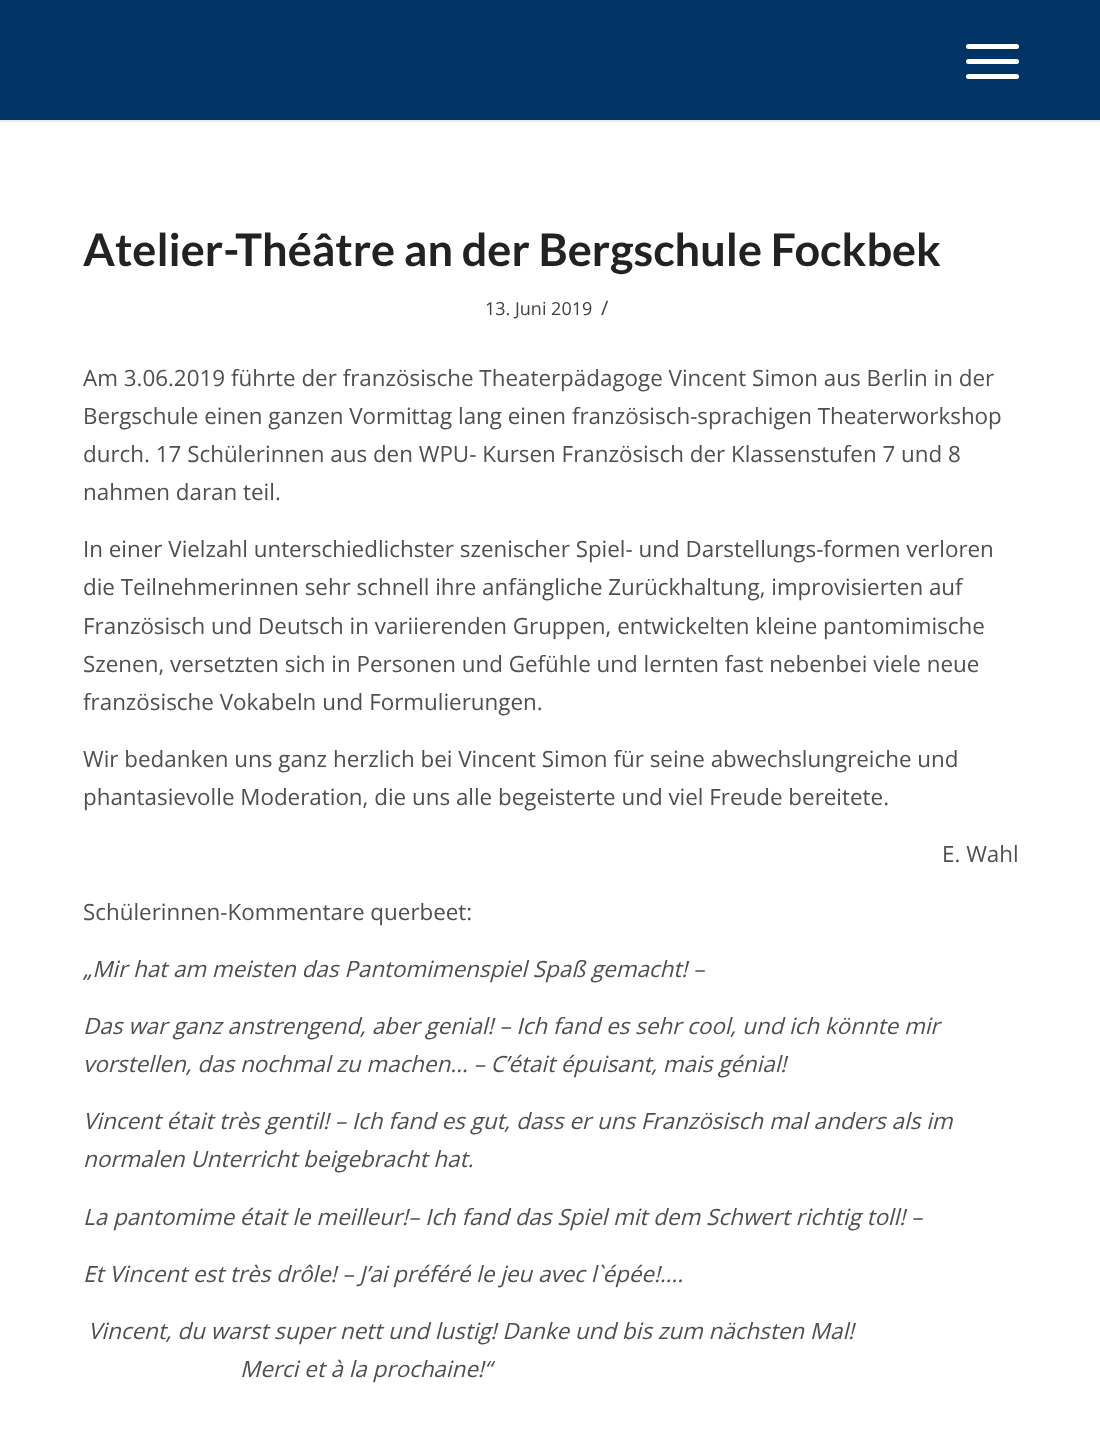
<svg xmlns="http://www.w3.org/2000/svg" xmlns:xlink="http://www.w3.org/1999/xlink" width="1100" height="1438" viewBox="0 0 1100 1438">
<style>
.cls-1{font:bold 45px Lato;fill:#222222}
.cls-2{font:18px Open Sans;fill:#424242}
.cls-3{font:20px Open Sans;fill:#424242}
.cls-4{font:22.4px Open Sans;fill:#4f4f4f}
.cls-5{font:italic 22.4px Open Sans;fill:#4f4f4f}
</style>
<rect width="100%" height="100%" fill="#ffffff"/>
<rect fill="#003366" x="0" y="0" width="1100" height="120"/>
<rect fill="#ebebeb" x="0" y="120" width="1100" height="2"/>
<rect fill="#ffffff" x="966" y="59" width="53" height="5" rx="2.5"/>
<rect fill="#ffffff" x="966" y="44" width="53" height="5" rx="2.5"/>
<rect fill="#ffffff" x="966" y="74" width="53" height="5" rx="2.5"/>
<text class="cls-1" x="83" y="266">Atelier-Théâtre an der Bergschule Fockbek</text>
<text class="cls-2" x="485" y="315">13. Juni 2019</text>
<text class="cls-3" x="601" y="315">/</text>
<text class="cls-4"><tspan x="83" y="386">Am 3.06.2019 führte der französische Theaterpädagoge Vincent Simon aus Berlin in der</tspan><tspan x="83" y="424">Bergschule einen ganzen Vormittag lang einen französisch-sprachigen Theaterworkshop</tspan><tspan x="83" y="462">durch. 17 Schülerinnen aus den WPU- Kursen Französisch der Klassenstufen 7 und 8</tspan><tspan x="83" y="500">nahmen daran teil.</tspan></text>
<text class="cls-4"><tspan x="83" y="557">In einer Vielzahl unterschiedlichster szenischer Spiel- und Darstellungs-formen verloren</tspan><tspan x="83" y="595">die Teilnehmerinnen sehr schnell ihre anfängliche Zurückhaltung, improvisierten auf</tspan><tspan x="83" y="634">Französisch und Deutsch in variierenden Gruppen, entwickelten kleine pantomimische</tspan><tspan x="83" y="672">Szenen, versetzten sich in Personen und Gefühle und lernten fast nebenbei viele neue</tspan><tspan x="83" y="710">französische Vokabeln und Formulierungen.</tspan></text>
<text class="cls-4"><tspan x="83" y="767">Wir bedanken uns ganz herzlich bei Vincent Simon für seine abwechslungreiche und</tspan><tspan x="83" y="805">phantasievolle Moderation, die uns alle begeisterte und viel Freude bereitete.</tspan></text>
<text class="cls-4" x="942" y="862">E. Wahl</text>
<text class="cls-4" x="83" y="920">Schülerinnen-Kommentare querbeet:</text>
<text class="cls-5" x="83" y="977">„Mir hat am meisten das Pantomimenspiel Spaß gemacht! –</text>
<text class="cls-5"><tspan x="83" y="1034">Das war ganz anstrengend, aber genial! – Ich fand es sehr cool, und ich könnte mir</tspan><tspan x="83" y="1072">vorstellen, das nochmal zu machen… – C’était épuisant, mais génial!</tspan></text>
<text class="cls-5"><tspan x="83" y="1129">Vincent était très gentil! – Ich fand es gut, dass er uns Französisch mal anders als im</tspan><tspan x="83" y="1167">normalen Unterricht beigebracht hat.</tspan></text>
<text class="cls-5" x="83" y="1225">La pantomime était le meilleur!– Ich fand das Spiel mit dem Schwert richtig toll! –</text>
<text class="cls-5" x="83" y="1282">Et Vincent est très drôle! – J’ai préféré le jeu avec l`épée!….</text>
<text class="cls-5" x="88" y="1339">Vincent, du warst super nett und lustig! Danke und bis zum nächsten Mal!</text>
<text class="cls-5" x="240" y="1377">Merci et à la prochaine!“</text>
</svg>
